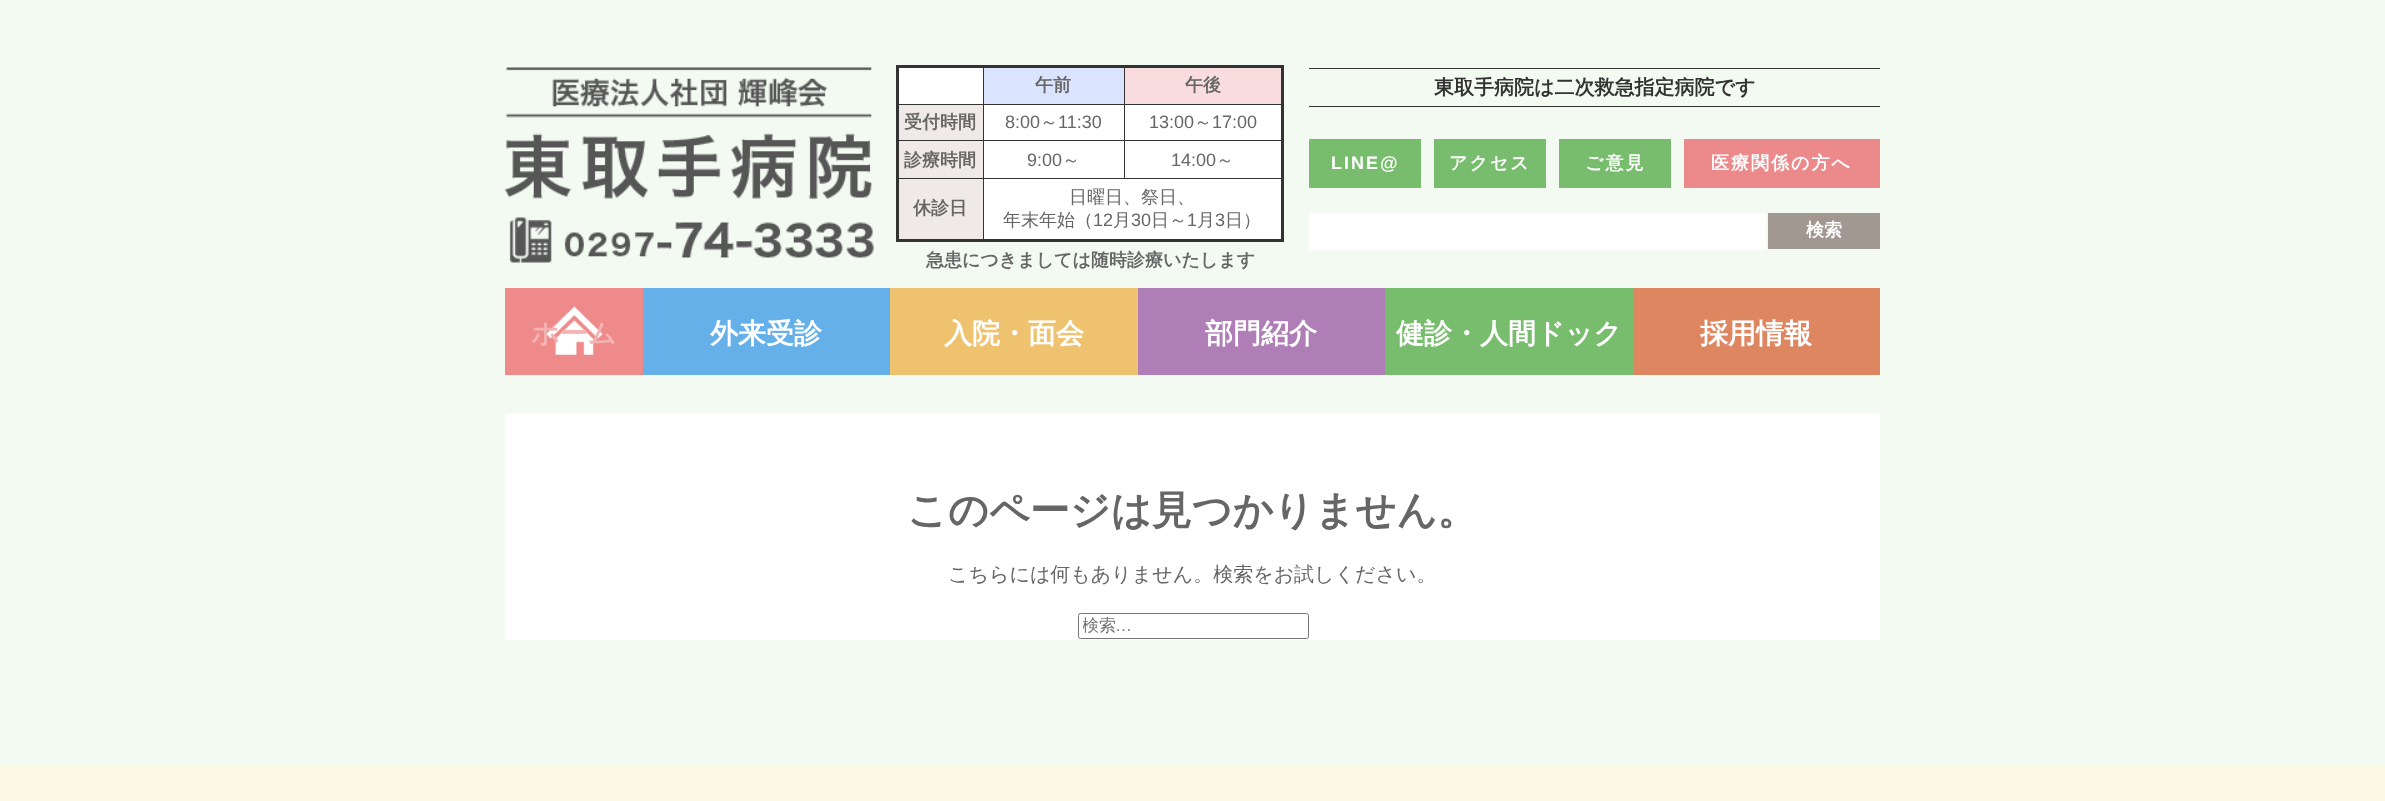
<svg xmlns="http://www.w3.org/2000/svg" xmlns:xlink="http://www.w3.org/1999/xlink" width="2385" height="801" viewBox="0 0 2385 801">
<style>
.cls-1{font:bold 18px WenQuanYi Zen Hei;fill:#666666}
.cls-2{font:18px Liberation Sans;fill:#666666}
.cls-3{font:500 18px WenQuanYi Zen Hei;fill:#666666}
.cls-4{font:bold 20px WenQuanYi Zen Hei;fill:#333333}
.cls-5{font:bold 18px Liberation Sans;letter-spacing:2px;fill:#ffffff}
.cls-6{font:bold 18px WenQuanYi Zen Hei;letter-spacing:2px;fill:#ffffff}
.cls-7{font:bold 18px WenQuanYi Zen Hei;fill:#ffffff}
.cls-8{font:bold 28px WenQuanYi Zen Hei;fill:#f4b2b2}
.cls-9{font:bold 28px WenQuanYi Zen Hei;fill:#ffffff}
.cls-10{font:bold 40px WenQuanYi Zen Hei;fill:#666666}
.cls-11{font:500 20px WenQuanYi Zen Hei;fill:#666666}
.cls-12{font:500 17px WenQuanYi Zen Hei;fill:#757575}
.cls-13{font:17px Liberation Sans;fill:#757575}
</style>
<defs>
<clipPath id="clip1"><rect x="1083" y="615" width="205" height="21"/></clipPath>
</defs>
<rect width="100%" height="100%" fill="#f3faf2"/>
<image xlink:href="image0.png" x="505" y="67" width="369" height="196"/>
<rect fill="#ffffff" x="899" y="68" width="382" height="171"/>
<rect fill="#333333" x="1124" y="104" width="160" height="1"/>
<rect fill="#333333" x="1124" y="140" width="160" height="1"/>
<rect fill="#333333" x="983" y="178" width="301" height="1"/>
<rect fill="#333333" x="1124" y="140" width="1" height="39"/>
<rect fill="#333333" x="983" y="140" width="142" height="1"/>
<rect fill="#333333" x="1124" y="104" width="1" height="37"/>
<rect fill="#333333" x="983" y="104" width="142" height="1"/>
<rect fill="#333333" x="983" y="178" width="1" height="62"/>
<rect fill="#333333" x="898" y="178" width="86" height="1"/>
<rect fill="#333333" x="983" y="140" width="1" height="39"/>
<rect fill="#333333" x="898" y="140" width="86" height="1"/>
<rect fill="#333333" x="983" y="104" width="1" height="37"/>
<rect fill="#333333" x="898" y="104" width="86" height="1"/>
<rect fill="#333333" x="983" y="66" width="1" height="39"/>
<rect fill="#333333" x="1124" y="66" width="1" height="39"/>
<rect fill="#333333" x="896" y="65" width="388" height="3"/>
<rect fill="#333333" x="1281" y="65" width="3" height="176"/>
<rect fill="#333333" x="896" y="239" width="388" height="3"/>
<rect fill="#333333" x="896" y="65" width="3" height="176"/>
<rect fill="#dae4ff" x="984" y="68" width="140" height="36"/>
<rect fill="#f9dcde" x="1125" y="68" width="156" height="36"/>
<rect fill="#efeae7" x="899" y="105" width="84" height="35"/>
<rect fill="#efeae7" x="899" y="141" width="84" height="37"/>
<rect fill="#efeae7" x="899" y="179" width="84" height="60"/>
<rect fill="#333333" x="1309" y="68" width="571" height="1"/>
<rect fill="#333333" x="1309" y="106" width="571" height="1"/>
<rect fill="#78bd6d" x="1309" y="139" width="112" height="49"/>
<rect fill="#78bd6d" x="1434" y="139" width="112" height="49"/>
<rect fill="#78bd6d" x="1559" y="139" width="112" height="49"/>
<rect fill="#ec898b" x="1684" y="139" width="196" height="49"/>
<rect fill="#ffffff" x="1309" y="213" width="457" height="37"/>
<rect fill="#a29791" x="1768" y="213" width="112" height="36"/>
<rect fill="#ee8a8a" x="505" y="288" width="138" height="87"/>
<image xlink:href="image1.png" x="546" y="306" width="57" height="49"/>
<rect fill="#65b0e9" x="643" y="288" width="247" height="87"/>
<rect fill="#efc26f" x="890" y="288" width="248" height="87"/>
<rect fill="#af7eb6" x="1138" y="288" width="247" height="87"/>
<rect fill="#78bd6d" x="1385" y="288" width="248" height="87"/>
<rect fill="#de8660" x="1633" y="288" width="247" height="87"/>
<rect fill="#ffffff" x="505" y="413" width="1375" height="227"/>
<rect fill="none" stroke="#767676" x="1078.5" y="613.5" width="230" height="25" rx="2"/>
<rect fill="#faf7e4" x="0" y="765" width="2385" height="36"/>
<text class="cls-1" x="1035" y="91">午前</text>
<text class="cls-1" x="1185" y="91">午後</text>
<text class="cls-1" x="904" y="128">受付時間</text>
<text class="cls-2" x="1005" y="128">8:00</text>
<text class="cls-3" x="1040" y="128">～</text>
<text class="cls-2" x="1058" y="128">11:30</text>
<text class="cls-2" x="1149" y="128">13:00</text>
<text class="cls-3" x="1194" y="128">～</text>
<text class="cls-2" x="1212" y="128">17:00</text>
<text class="cls-1" x="904" y="166">診療時間</text>
<text class="cls-2" x="1027" y="166">9:00</text>
<text class="cls-3" x="1062" y="166">～</text>
<text class="cls-2" x="1171" y="166">14:00</text>
<text class="cls-3" x="1216" y="166">～</text>
<text class="cls-1" x="913" y="214">休診日</text>
<text class="cls-3" x="1069" y="203">日曜日、祭日、</text>
<text class="cls-3" x="1003" y="226">年末年始（</text>
<text class="cls-2" x="1093" y="226">12</text>
<text class="cls-3" x="1113" y="226">月</text>
<text class="cls-2" x="1131" y="226">30</text>
<text class="cls-3" x="1151" y="226">日～</text>
<text class="cls-2" x="1187" y="226">1</text>
<text class="cls-3" x="1197" y="226">月</text>
<text class="cls-2" x="1215" y="226">3</text>
<text class="cls-3" x="1225" y="226">日）</text>
<text class="cls-1" x="926" y="266">急患につきましては随時診療いたします</text>
<text class="cls-4" x="1434" y="94">東取手病院は二次救急指定病院です</text>
<text class="cls-5" x="1331" y="169">LINE@</text>
<text class="cls-6" x="1449" y="169">アクセス</text>
<text class="cls-6" x="1585" y="169">ご意見</text>
<text class="cls-6" x="1711" y="169">医療関係の方へ</text>
<text class="cls-7" x="1806" y="236">検索</text>
<text class="cls-8" x="531" y="343">ホーム</text>
<text class="cls-9" x="710" y="343">外来受診</text>
<text class="cls-9" x="944" y="343">入院・面会</text>
<text class="cls-9" x="1205" y="343">部門紹介</text>
<text class="cls-9" x="1396" y="343">健診・人間ドック</text>
<text class="cls-9" x="1700" y="343">採用情報</text>
<text class="cls-10" x="907" y="524">このページは見つかりません。</text>
<text class="cls-11" x="948" y="581">こちらには何もありません。検索をお試しください。</text>
<g clip-path="url(#clip1)">
<text class="cls-12" x="1082" y="631">検索</text>
</g>
<text class="cls-13" x="1115" y="631">…</text>
</svg>
